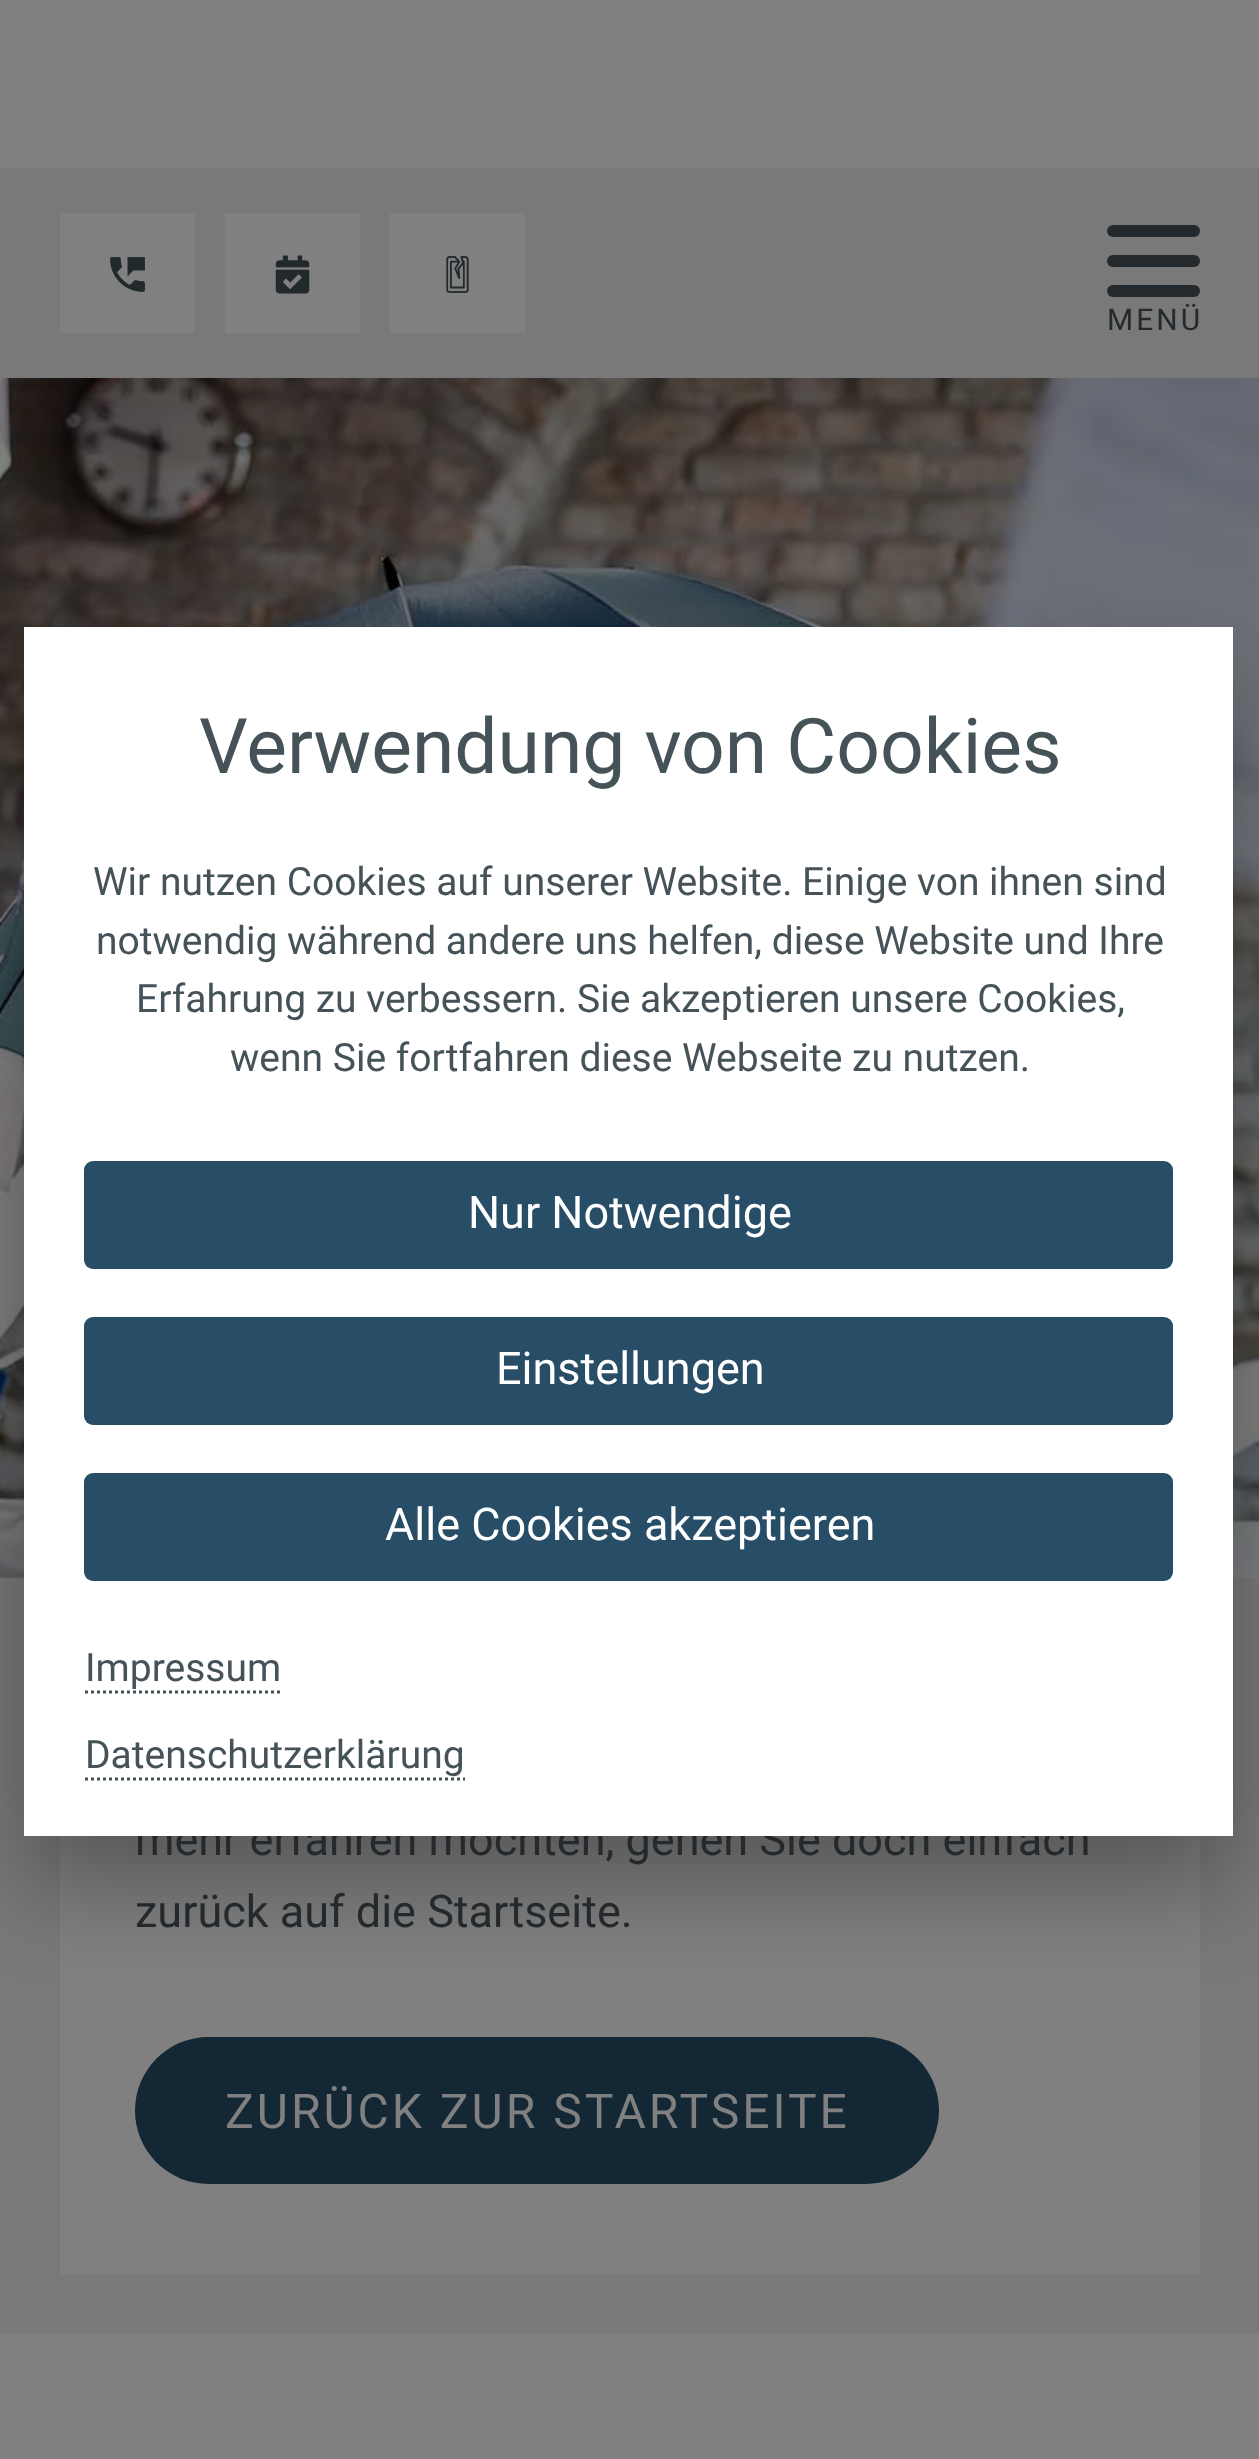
<svg xmlns="http://www.w3.org/2000/svg" xmlns:xlink="http://www.w3.org/1999/xlink" width="1259" height="2459" viewBox="0 0 1259 2459">
<style>
.cls-1{font:30px Roboto;letter-spacing:3px;fill:#23292c}
.cls-2{font:45px Roboto;fill:#23292c}
.cls-3{font:39px Roboto;fill:#455258}
.cls-4{font:45px Roboto;fill:#ffffff}
.cls-5{font:76.75px Roboto;fill:#455258}
.cls-6{font:48px Roboto;letter-spacing:3px;fill:#808080}
</style>
<rect width="100%" height="100%" fill="#808080"/>
<rect fill="#797979" x="0" y="168" width="1259" height="210"/>
<rect fill="#808080" x="60" y="213" width="135" height="120"/>
<image xlink:href="image0.png" x="110" y="257" width="35" height="35"/>
<rect fill="#808080" x="225" y="213" width="135" height="120"/>
<image xlink:href="image1.png" x="275" y="255" width="35" height="39"/>
<rect fill="#808080" x="390" y="213" width="135" height="120"/>
<image xlink:href="image2.png" x="446" y="256" width="23" height="37"/>
<rect fill="#23292c" x="1107" y="225" width="93" height="12" rx="6"/>
<rect fill="#23292c" x="1107" y="255" width="93" height="12" rx="6"/>
<rect fill="#23292c" x="1107" y="285" width="93" height="12" rx="6"/>
<image xlink:href="image3.png" x="0" y="378" width="1259" height="1200"/>
<rect fill="#797979" x="0" y="1578" width="1259" height="756"/>
<rect fill="#808080" x="60" y="1836" width="1140" height="438"/>
<rect fill="#000000" fill-opacity="0.32" filter="blur(48px)" x="24" y="675" width="1209" height="1209"/>
<rect fill="#142734" x="135" y="2037" width="804" height="147" rx="73.5"/>
<text class="cls-1" x="1107" y="330">MENÜ</text>
<text class="cls-2" x="135" y="1855">mehr erfahren möchten, gehen Sie doch einfach</text>
<rect fill="#ffffff" x="24" y="627" width="1209" height="1209"/>
<text class="cls-3" x="85" y="1768">Datenschutzerklärung</text>
<path fill="none" stroke="#455258" stroke-width="3" stroke-dasharray="3 3" d="M85 1779H465"/>
<text class="cls-3" x="85" y="1681">Impressum</text>
<path fill="none" stroke="#455258" stroke-width="3" stroke-dasharray="3 3" d="M85 1692H281.5"/>
<rect fill="#274d67" x="84" y="1473" width="1089" height="108" rx="9"/>
<text class="cls-4" x="385" y="1540">Alle Cookies akzeptieren</text>
<rect fill="#274d67" x="84" y="1317" width="1089" height="108" rx="9"/>
<text class="cls-4" x="496" y="1384">Einstellungen</text>
<rect fill="#274d67" x="84" y="1161" width="1089" height="108" rx="9"/>
<text class="cls-4" x="468" y="1228">Nur Notwendige</text>
<text class="cls-3" x="230" y="1071">wenn Sie fortfahren diese Webseite zu nutzen.</text>
<text class="cls-3" x="136" y="1012">Erfahrung zu verbessern. Sie akzeptieren unsere Cookies,</text>
<text class="cls-3" x="96" y="954">notwendig während andere uns helfen, diese Website und Ihre</text>
<text class="cls-3" x="93" y="895">Wir nutzen Cookies auf unserer Website. Einige von ihnen sind</text>
<text class="cls-5" x="199" y="773">Verwendung von Cookies</text>
<text class="cls-2" x="135" y="1927">zurück auf die Startseite.</text>
<text class="cls-6" x="225" y="2128">ZURÜCK ZUR STARTSEITE</text>
</svg>
